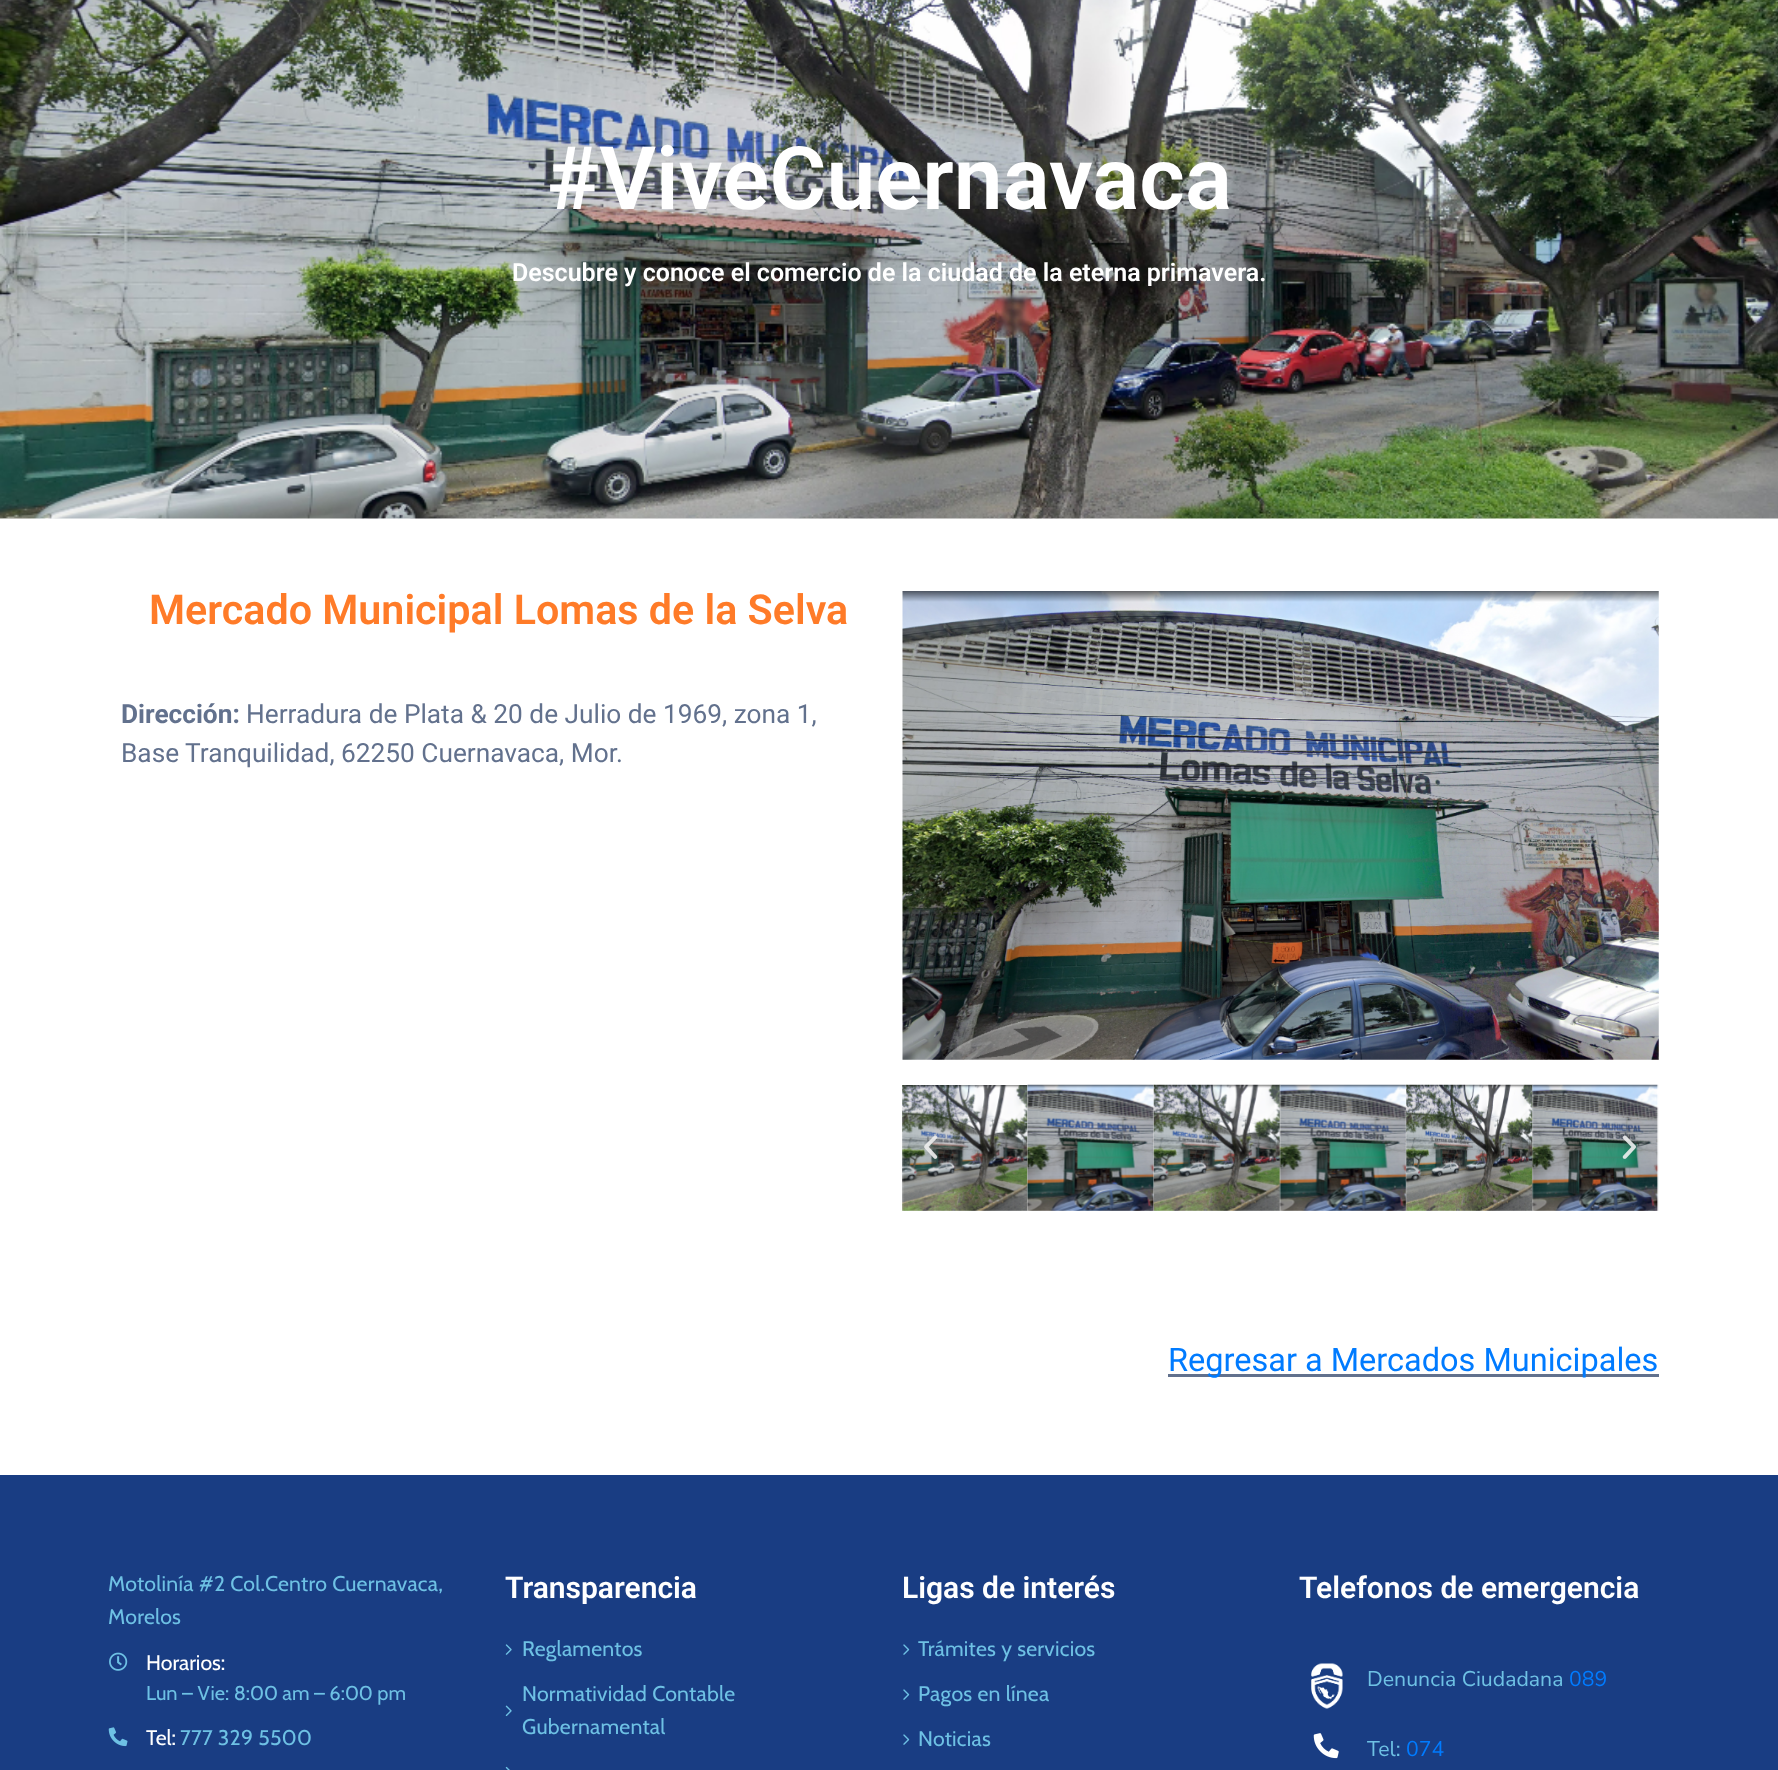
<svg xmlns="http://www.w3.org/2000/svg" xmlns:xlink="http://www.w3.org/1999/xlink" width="1778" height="1770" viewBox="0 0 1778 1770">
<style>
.cls-1{font:600 87.5px Roboto;fill:#ffffff}
.cls-2{font:600 25px Roboto;fill:#ffffff}
.cls-3{font:600 41.25px Roboto;fill:#ff7b28}
.cls-4{font:bold 26.25px Roboto;fill:#62718d}
.cls-5{font:26.25px Roboto;fill:#62718d}
.cls-6{font:32.5px Roboto;fill:#007bff}
.cls-7{font:21.25px Cabin;letter-spacing:0.25px;fill:#6ec1e4}
.cls-8{font:21.25px Cabin;fill:#ffffff}
.cls-9{font:20px Cabin;fill:#6ec1e4}
.cls-10{font:600 30px Roboto;fill:#ffffff}
.cls-11{font:21.25px Nunito Sans;fill:#6ec1e4}
.cls-12{font:21.25px Nunito Sans;fill:#007bff}
</style>
<rect width="100%" height="100%" fill="#ffffff"/>
<image xlink:href="image0.png" x="0" y="0" width="1778" height="519"/>
<image xlink:href="image1.png" x="902" y="591" width="757" height="469"/>
<image xlink:href="image2.png" x="902" y="1085" width="127" height="126"/>
<image xlink:href="image3.png" x="1027" y="1084" width="128" height="127"/>
<image xlink:href="image4.png" x="1153" y="1084" width="128" height="127"/>
<image xlink:href="image5.png" x="1279" y="1084" width="128" height="127"/>
<image xlink:href="image6.png" x="1406" y="1084" width="127" height="127"/>
<image xlink:href="image7.png" x="1532" y="1084" width="127" height="127"/>
<image xlink:href="image8.png" x="924" y="1135" width="14" height="24"/>
<image xlink:href="image9.png" x="1622" y="1135" width="14" height="24"/>
<rect fill="#62718d" x="1168" y="1374" width="491" height="3"/>
<rect fill="#193d83" x="0" y="1475" width="1778" height="295"/>
<image xlink:href="image10.png" x="109" y="1652" width="19" height="19"/>
<image xlink:href="image11.png" x="108" y="1727" width="20" height="20"/>
<image xlink:href="image12.png" x="505" y="1644" width="7" height="11"/>
<image xlink:href="image13.png" x="505" y="1705" width="7" height="12"/>
<image xlink:href="image14.png" x="505" y="1766" width="5" height="4"/>
<image xlink:href="image15.png" x="903" y="1644" width="7" height="11"/>
<image xlink:href="image15.png" x="903" y="1689" width="7" height="11"/>
<image xlink:href="image15.png" x="903" y="1734" width="7" height="11"/>
<image xlink:href="image16.png" x="1311" y="1663" width="32" height="46"/>
<image xlink:href="image17.png" x="1313" y="1733" width="26" height="26"/>
<text class="cls-1" x="547" y="209">#ViveCuernavaca</text>
<text class="cls-2" x="512" y="281">Descubre y conoce el comercio de la ciudad de la eterna primavera.</text>
<text class="cls-3" x="149" y="624">Mercado Municipal Lomas de la Selva</text>
<text class="cls-4" x="121" y="723">Dirección:</text>
<text class="cls-5" x="246" y="723">Herradura de Plata &amp; 20 de Julio de 1969, zona 1,</text>
<text class="cls-5" x="121" y="762">Base Tranquilidad, 62250 Cuernavaca, Mor.</text>
<text class="cls-6" x="1168" y="1371">Regresar a Mercados Municipales</text>
<text class="cls-7"><tspan x="108" y="1591">Motolinía #2 Col.Centro Cuernavaca,</tspan><tspan x="108" y="1624">Morelos</tspan></text>
<text class="cls-8" x="146" y="1670">Horarios:</text>
<text class="cls-9" x="146" y="1700">Lun – Vie: 8:00 am – 6:00 pm</text>
<text class="cls-8" x="146" y="1745">Tel:</text>
<text class="cls-7" x="180" y="1745">777 329 5500</text>
<text class="cls-10" x="505" y="1598">Transparencia</text>
<text class="cls-7" x="522" y="1656">Reglamentos</text>
<text class="cls-7"><tspan x="522" y="1701">Normatividad Contable</tspan><tspan x="522" y="1734">Gubernamental</tspan></text>
<text class="cls-10" x="902" y="1598">Ligas de interés</text>
<text class="cls-7" x="918" y="1656">Trámites y servicios</text>
<text class="cls-7" x="918" y="1701">Pagos en línea</text>
<text class="cls-7" x="918" y="1746">Noticias</text>
<text class="cls-10" x="1299" y="1598">Telefonos de emergencia</text>
<text class="cls-11" x="1367" y="1686">Denuncia Ciudadana</text>
<text class="cls-12" x="1569" y="1686">089</text>
<text class="cls-11" x="1367" y="1756">Tel:</text>
<text class="cls-12" x="1406" y="1756">074</text>
</svg>
